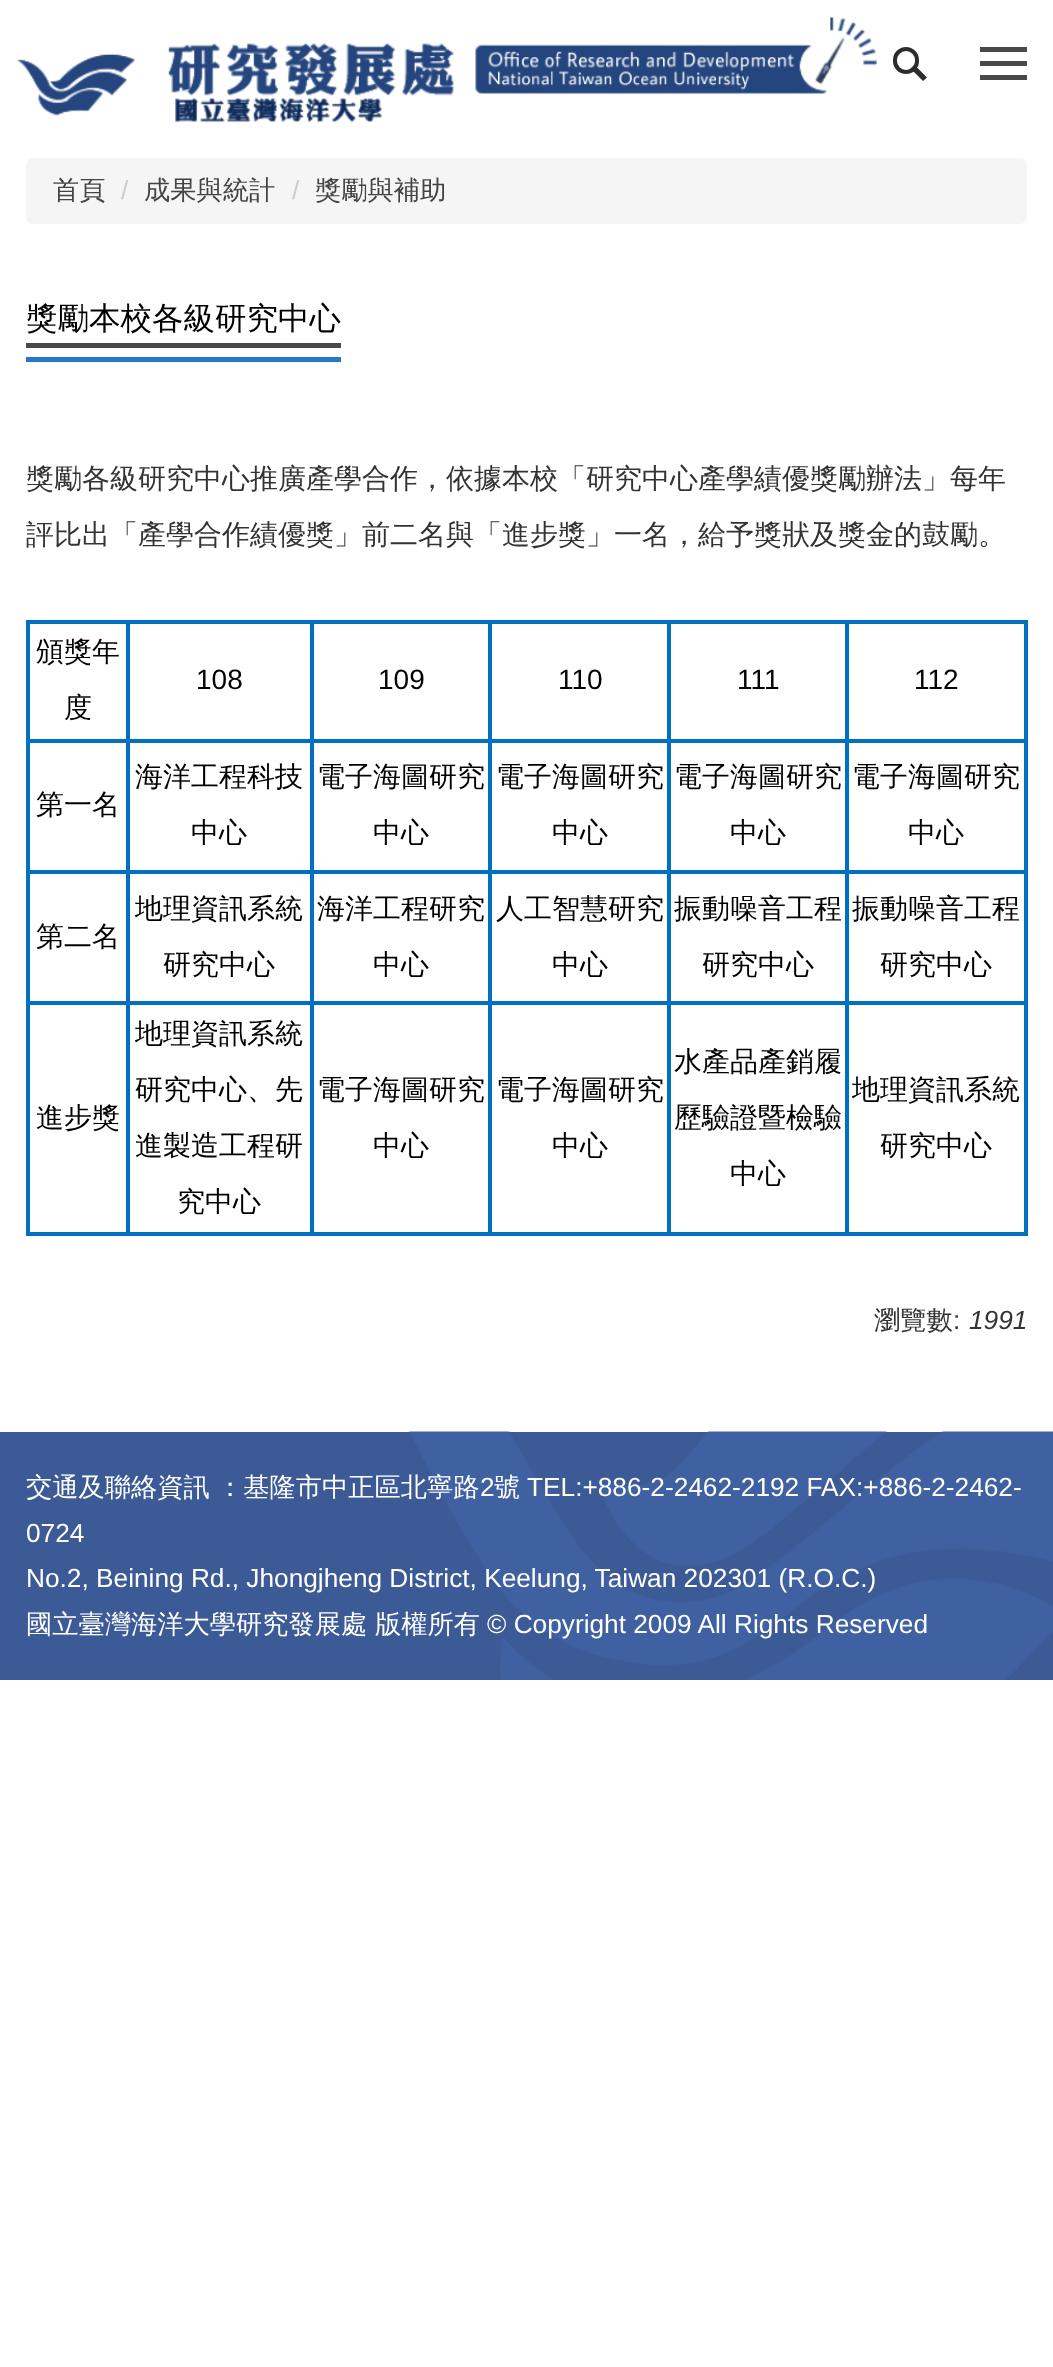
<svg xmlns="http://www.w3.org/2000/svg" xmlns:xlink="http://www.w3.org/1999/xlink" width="1053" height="2367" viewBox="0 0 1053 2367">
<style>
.cls-1{font:500 26.25px WenQuanYi Zen Hei;fill:#434343}
.cls-2{font:26.25px Liberation Sans;fill:#cccccc}
.cls-3{font:500 31.5px WenQuanYi Zen Hei;fill:#000000}
.cls-4{font:500 28px WenQuanYi Zen Hei;fill:#333333}
.cls-5{font:500 28px WenQuanYi Zen Hei;fill:#000000}
.cls-6{font:28px Liberation Sans;fill:#000000}
.cls-7{font:500 26.25px WenQuanYi Zen Hei;fill:#333333}
.cls-8{font:26.25px Liberation Sans;fill:#333333}
.cls-9{font:italic 26.25px Liberation Sans;fill:#333333}
.cls-10{font:500 26.25px WenQuanYi Zen Hei;fill:#ffffff}
.cls-11{font:26.25px Liberation Sans;fill:#ffffff}
</style>
<rect width="100%" height="100%" fill="#ffffff"/>
<image xlink:href="image0.png" x="17" y="17" width="860" height="106"/>
<rect fill="none" stroke="#2c2c2c" stroke-width="4" x="895" y="49" width="22" height="23" rx="11"/>
<path fill="#2c2c2c" d="M914.5 65L927 77.5L923 81L910.5 68.5Z"/>
<rect fill="#494949" x="980" y="61" width="47" height="5"/>
<rect fill="#494949" x="980" y="47" width="47" height="5"/>
<rect fill="#494949" x="980" y="75" width="47" height="5"/>
<rect fill="#f5f5f5" x="26" y="158" width="1001" height="66" rx="7"/>
<rect fill="#2878c8" x="26" y="357" width="315" height="5"/>
<rect fill="#494949" x="26" y="343" width="315" height="5"/>
<rect fill="#0070c0" x="26" y="620" width="1001" height="4"/>
<rect fill="#0070c0" x="1024" y="739" width="4" height="497"/>
<rect fill="#0070c0" x="1024" y="620" width="4" height="122"/>
<rect fill="#0070c0" x="845" y="1232" width="182" height="4"/>
<rect fill="#0070c0" x="845" y="1001" width="4" height="235"/>
<rect fill="#0070c0" x="845" y="1001" width="182" height="4"/>
<rect fill="#0070c0" x="845" y="870" width="4" height="135"/>
<rect fill="#0070c0" x="845" y="870" width="182" height="4"/>
<rect fill="#0070c0" x="845" y="739" width="4" height="134"/>
<rect fill="#0070c0" x="845" y="739" width="182" height="4"/>
<rect fill="#0070c0" x="845" y="620" width="4" height="122"/>
<rect fill="#0070c0" x="667" y="1232" width="182" height="4"/>
<rect fill="#0070c0" x="667" y="1001" width="4" height="235"/>
<rect fill="#0070c0" x="667" y="1001" width="182" height="4"/>
<rect fill="#0070c0" x="667" y="870" width="4" height="135"/>
<rect fill="#0070c0" x="667" y="870" width="182" height="4"/>
<rect fill="#0070c0" x="667" y="739" width="4" height="134"/>
<rect fill="#0070c0" x="667" y="739" width="182" height="4"/>
<rect fill="#0070c0" x="667" y="620" width="4" height="122"/>
<rect fill="#0070c0" x="488" y="1232" width="182" height="4"/>
<rect fill="#0070c0" x="488" y="1001" width="4" height="235"/>
<rect fill="#0070c0" x="488" y="1001" width="182" height="4"/>
<rect fill="#0070c0" x="488" y="870" width="4" height="135"/>
<rect fill="#0070c0" x="488" y="870" width="182" height="4"/>
<rect fill="#0070c0" x="488" y="739" width="4" height="134"/>
<rect fill="#0070c0" x="488" y="739" width="182" height="4"/>
<rect fill="#0070c0" x="488" y="620" width="4" height="122"/>
<rect fill="#0070c0" x="310" y="1232" width="182" height="4"/>
<rect fill="#0070c0" x="310" y="1001" width="4" height="235"/>
<rect fill="#0070c0" x="310" y="1001" width="182" height="4"/>
<rect fill="#0070c0" x="310" y="870" width="4" height="135"/>
<rect fill="#0070c0" x="310" y="870" width="182" height="4"/>
<rect fill="#0070c0" x="310" y="739" width="4" height="134"/>
<rect fill="#0070c0" x="310" y="739" width="182" height="4"/>
<rect fill="#0070c0" x="310" y="620" width="4" height="122"/>
<rect fill="#0070c0" x="126" y="1232" width="187" height="4"/>
<rect fill="#0070c0" x="126" y="1001" width="4" height="235"/>
<rect fill="#0070c0" x="126" y="1001" width="187" height="4"/>
<rect fill="#0070c0" x="126" y="870" width="4" height="135"/>
<rect fill="#0070c0" x="126" y="870" width="187" height="4"/>
<rect fill="#0070c0" x="126" y="739" width="4" height="134"/>
<rect fill="#0070c0" x="126" y="739" width="187" height="4"/>
<rect fill="#0070c0" x="126" y="620" width="4" height="122"/>
<rect fill="#0070c0" x="26" y="1232" width="104" height="4"/>
<rect fill="#0070c0" x="26" y="1001" width="4" height="235"/>
<rect fill="#0070c0" x="26" y="1001" width="104" height="4"/>
<rect fill="#0070c0" x="26" y="870" width="4" height="135"/>
<rect fill="#0070c0" x="26" y="870" width="104" height="4"/>
<rect fill="#0070c0" x="26" y="739" width="4" height="134"/>
<rect fill="#0070c0" x="26" y="739" width="104" height="4"/>
<rect fill="#0070c0" x="26" y="620" width="4" height="122"/>
<rect fill="#3c5a96" x="0" y="1432" width="1053" height="248"/>
<image xlink:href="image1.png" x="408" y="1431" width="645" height="249"/>
<text class="cls-1" x="53" y="199">首頁</text>
<text class="cls-2" x="121" y="199">/</text>
<text class="cls-1" x="144" y="199">成果與統計</text>
<text class="cls-2" x="292" y="199">/</text>
<text class="cls-1" x="315" y="199">獎勵與補助</text>
<text class="cls-3" x="26" y="329">獎勵本校各級研究中心</text>
<text class="cls-4" x="26" y="488">獎勵各級研究中心推廣產學合作，依據本校「研究中心產學績優獎勵辦法」每年</text>
<text class="cls-4" x="26" y="544">評比出「產學合作績優獎」前二名與「進步獎」一名，給予獎狀及獎金的鼓勵。</text>
<text class="cls-5" x="36" y="661">頒獎年</text>
<text class="cls-5" x="64" y="717">度</text>
<text class="cls-6" x="196" y="689">108</text>
<text class="cls-6" x="378" y="689">109</text>
<text class="cls-6" x="558" y="689">110</text>
<text class="cls-6" x="737" y="689">111</text>
<text class="cls-6" x="914" y="689">112</text>
<text class="cls-5" x="36" y="814">第一名</text>
<text class="cls-5" x="135" y="786">海洋工程科技</text>
<text class="cls-5" x="191" y="842">中心</text>
<text class="cls-5" x="317" y="786">電子海圖研究</text>
<text class="cls-5" x="373" y="842">中心</text>
<text class="cls-5" x="496" y="786">電子海圖研究</text>
<text class="cls-5" x="552" y="842">中心</text>
<text class="cls-5" x="674" y="786">電子海圖研究</text>
<text class="cls-5" x="730" y="842">中心</text>
<text class="cls-5" x="852" y="786">電子海圖研究</text>
<text class="cls-5" x="908" y="842">中心</text>
<text class="cls-5" x="36" y="946">第二名</text>
<text class="cls-5" x="135" y="918">地理資訊系統</text>
<text class="cls-5" x="163" y="974">研究中心</text>
<text class="cls-5" x="317" y="918">海洋工程研究</text>
<text class="cls-5" x="373" y="974">中心</text>
<text class="cls-5" x="496" y="918">人工智慧研究</text>
<text class="cls-5" x="552" y="974">中心</text>
<text class="cls-5" x="674" y="918">振動噪音工程</text>
<text class="cls-5" x="702" y="974">研究中心</text>
<text class="cls-5" x="852" y="918">振動噪音工程</text>
<text class="cls-5" x="880" y="974">研究中心</text>
<text class="cls-5" x="36" y="1127">進步獎</text>
<text class="cls-5" x="135" y="1043">地理資訊系統</text>
<text class="cls-5" x="135" y="1099">研究中心、先</text>
<text class="cls-5" x="135" y="1155">進製造工程研</text>
<text class="cls-5" x="177" y="1211">究中心</text>
<text class="cls-5" x="317" y="1099">電子海圖研究</text>
<text class="cls-5" x="373" y="1155">中心</text>
<text class="cls-5" x="496" y="1099">電子海圖研究</text>
<text class="cls-5" x="552" y="1155">中心</text>
<text class="cls-5" x="674" y="1071">水產品產銷履</text>
<text class="cls-5" x="674" y="1127">歷驗證暨檢驗</text>
<text class="cls-5" x="730" y="1183">中心</text>
<text class="cls-5" x="852" y="1099">地理資訊系統</text>
<text class="cls-5" x="880" y="1155">研究中心</text>
<text class="cls-7" x="874" y="1329">瀏覽數</text>
<text class="cls-8" x="953" y="1329">:</text>
<text class="cls-9" x="969" y="1329">1991</text>
<text class="cls-10" x="26" y="1496">交通及聯絡資訊</text>
<text class="cls-10" x="217" y="1496">：基隆市中正區北寧路</text>
<text class="cls-11" x="480" y="1496">2</text>
<text class="cls-10" x="494" y="1496">號</text>
<text class="cls-11" x="527" y="1496">TEL:+886-2-2462-2192 FAX:+886-2-2462-</text>
<text class="cls-11"><tspan x="26" y="1542">0724</tspan><tspan x="26" y="1587">No.2, Beining Rd., Jhongjheng District, Keelung, Taiwan 202301 (R.O.C.)</tspan></text>
<text class="cls-10" x="26" y="1633">國立臺灣海洋大學研究發展處</text>
<text class="cls-10" x="375" y="1633">版權所有</text>
<text class="cls-11" x="487" y="1633">© Copyright 2009 All Rights Reserved</text>
</svg>
